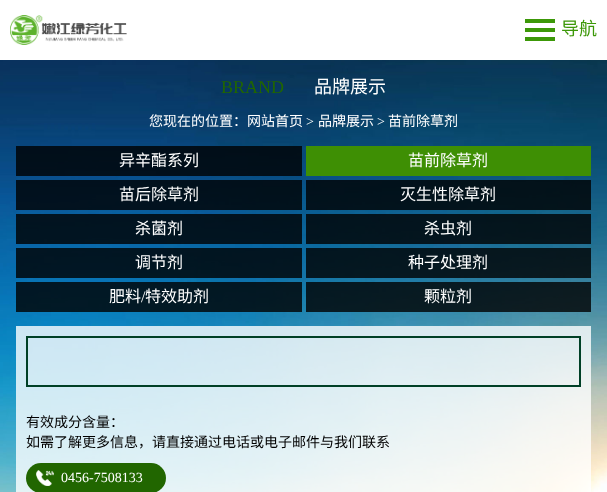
<svg xmlns="http://www.w3.org/2000/svg" xmlns:xlink="http://www.w3.org/1999/xlink" width="607" height="492" viewBox="0 0 607 492">
<style>
.cls-1{font:18px Noto Sans CJK SC;fill:#3c9808}
.cls-2{font:18px Liberation Serif;fill:#216600}
.cls-3{font:18px Noto Sans CJK SC;fill:#ffffff}
.cls-4{font:14px Noto Sans CJK SC;fill:#ffffff}
.cls-5{font:14px Liberation Serif;fill:#ffffff}
.cls-6{font:16px Noto Sans CJK SC;fill:#ffffff}
.cls-7{font:16px Liberation Serif;fill:#ffffff}
.cls-8{font:14px Noto Sans CJK SC;fill:#000000}
</style>
<rect width="100%" height="100%" fill="#ffffff"/>
<image xlink:href="image0.png" x="10" y="15" width="117" height="30"/>
<rect fill="#3c9808" x="525" y="19" width="30" height="4"/>
<rect fill="#3c9808" x="525" y="28" width="30" height="4"/>
<rect fill="#3c9808" x="525" y="37" width="30" height="4"/>
<image xlink:href="image1.png" x="0" y="60" width="607" height="432"/>
<rect fill="#000000" fill-opacity="0.8" x="16" y="146" width="286" height="30"/>
<rect fill="#3e8f04" x="306" y="146" width="285" height="30"/>
<rect fill="#000000" fill-opacity="0.8" x="16" y="180" width="286" height="30"/>
<rect fill="#000000" fill-opacity="0.8" x="306" y="180" width="285" height="30"/>
<rect fill="#000000" fill-opacity="0.8" x="16" y="214" width="286" height="30"/>
<rect fill="#000000" fill-opacity="0.8" x="306" y="214" width="285" height="30"/>
<rect fill="#000000" fill-opacity="0.8" x="16" y="248" width="286" height="30"/>
<rect fill="#000000" fill-opacity="0.8" x="306" y="248" width="285" height="30"/>
<rect fill="#000000" fill-opacity="0.8" x="16" y="282" width="286" height="30"/>
<rect fill="#000000" fill-opacity="0.8" x="306" y="282" width="285" height="30"/>
<rect fill="#ffffff" fill-opacity="0.8" x="16" y="326" width="575" height="166"/>
<rect fill="none" stroke="#004026" stroke-width="2" x="27" y="337" width="553" height="49"/>
<rect fill="#216600" x="26" y="463" width="140" height="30" rx="15"/>
<image xlink:href="image2.png" x="36" y="470" width="18" height="16"/>
<text class="cls-1" x="561" y="35">导航</text>
<text class="cls-2" x="221" y="93">BRAND</text>
<text class="cls-3" x="314" y="93">品牌展示</text>
<text class="cls-4" x="149" y="126">您现在的位置：网站首页</text>
<text class="cls-5" x="306" y="126">&gt;</text>
<text class="cls-4" x="318" y="126">品牌展示</text>
<text class="cls-5" x="377" y="126">&gt;</text>
<text class="cls-4" x="388" y="126">苗前除草剂</text>
<text class="cls-6" x="119" y="166">异辛酯系列</text>
<text class="cls-6" x="408" y="166">苗前除草剂</text>
<text class="cls-6" x="119" y="200">苗后除草剂</text>
<text class="cls-6" x="400" y="200">灭生性除草剂</text>
<text class="cls-6" x="135" y="234">杀菌剂</text>
<text class="cls-6" x="424" y="234">杀虫剂</text>
<text class="cls-6" x="135" y="268">调节剂</text>
<text class="cls-6" x="408" y="268">种子处理剂</text>
<text class="cls-6" x="109" y="302">肥料</text>
<text class="cls-7" x="141" y="302">/</text>
<text class="cls-6" x="145" y="302">特效助剂</text>
<text class="cls-6" x="424" y="302">颗粒剂</text>
<text class="cls-8"><tspan x="26" y="427">有效成分含量：</tspan><tspan x="26" y="447">如需了解更多信息，请直接通过电话或电子邮件与我们联系</tspan></text>
<text class="cls-5" x="61" y="482">0456-7508133</text>
</svg>
